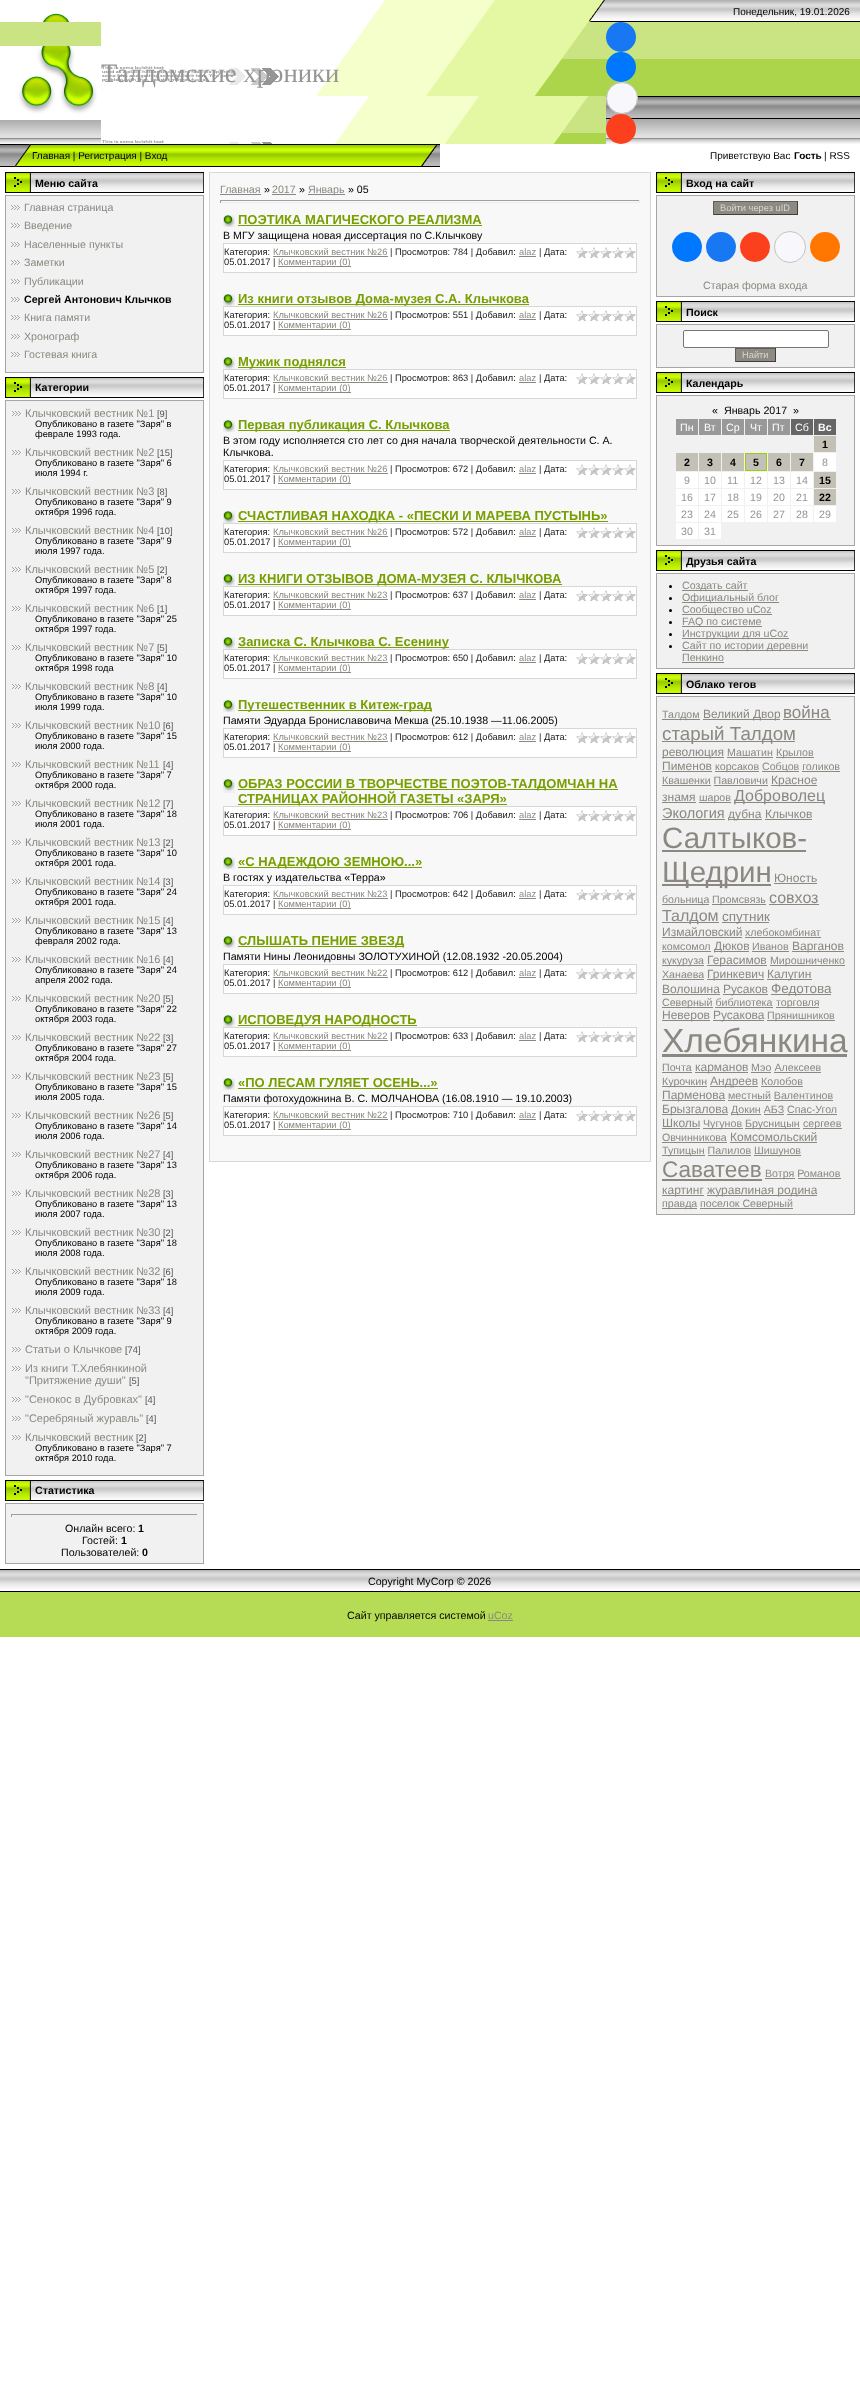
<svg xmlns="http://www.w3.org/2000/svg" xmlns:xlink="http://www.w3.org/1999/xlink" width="860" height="2397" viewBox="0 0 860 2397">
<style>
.cls-1{font:10px Liberation Sans;fill:#000000}
.cls-2{font:26.75px Liberation Serif;fill:#969595}
.cls-3{font:bold 10px Liberation Sans;fill:#000000}
.cls-4{font:bold 10.65px Liberation Sans;fill:#000000}
.cls-5{font:10.65px Liberation Sans;fill:#8b8881}
.cls-6{font:11px Liberation Sans;fill:#8b8881}
.cls-7{font:9.3px Liberation Sans;fill:#555555}
.cls-8{font:9.3px Liberation Sans;fill:#000000}
.cls-9{font:10.65px Liberation Sans;fill:#000000}
.cls-10{font:bold 13px Liberation Sans;fill:#779f00}
.cls-11{font:9.3px Liberation Sans;fill:#1a1a1a}
.cls-12{font:9.3px Liberation Sans;fill:#8b8881}
.cls-13{font:9.3px Liberation Sans;fill:#dad7cc}
.cls-14{font:10.65px Liberation Sans;fill:#ffffff}
.cls-15{font:bold 10.65px Liberation Sans;fill:#ffffff}
.cls-16{font:10.65px Liberation Sans;fill:#969595}
.cls-17{font:12px Liberation Sans;fill:#8b8881}
.cls-18{font:17px Liberation Sans;fill:#8b8881}
.cls-19{font:18.75px Liberation Sans;fill:#8b8881}
.cls-20{font:16px Liberation Sans;fill:#8b8881}
.cls-21{font:14.5px Liberation Sans;fill:#8b8881}
.cls-22{font:29.5px Liberation Sans;fill:#8b8881}
.cls-23{font:13.5px Liberation Sans;fill:#8b8881}
.cls-24{font:33.5px Liberation Sans;fill:#8b8881}
.cls-25{font:22.5px Liberation Sans;fill:#8b8881}
</style>
<rect width="100%" height="100%" fill="#ffffff"/>
<image xlink:href="image0.png" x="0" y="0" width="860" height="144"/>
<image xlink:href="image1.png" x="0" y="0" width="101" height="22"/>
<image xlink:href="image2.png" x="101" y="0" width="504" height="22"/>
<image xlink:href="image3.png" x="0" y="46" width="101" height="74"/>
<image xlink:href="image4.png" x="101" y="22" width="505" height="122"/>
<circle fill="#1877f2" cx="621" cy="37" r="15"/>
<circle fill="#0077ff" cx="621" cy="67" r="15"/>
<circle fill="#f8f8fc" stroke="#c4c4c4" cx="622" cy="98" r="15.5"/>
<circle fill="#fc3f1d" cx="621" cy="129" r="15"/>
<image xlink:href="image5.png" x="0" y="144" width="32" height="23"/>
<image xlink:href="image6.png" x="32" y="144" width="381" height="23"/>
<image xlink:href="image7.png" x="413" y="144" width="27" height="23"/>
<image xlink:href="image8.png" x="5" y="172" width="199" height="21"/>
<rect fill="#f1f1f1" stroke="#a7a6a6" x="5.5" y="195.5" width="198" height="177"/>
<image xlink:href="image9.png" x="11" y="205" width="9" height="5"/>
<image xlink:href="image9.png" x="11" y="223" width="9" height="5"/>
<image xlink:href="image9.png" x="11" y="242" width="9" height="5"/>
<image xlink:href="image9.png" x="11" y="260" width="9" height="5"/>
<image xlink:href="image9.png" x="11" y="279" width="9" height="5"/>
<image xlink:href="image9.png" x="11" y="297" width="9" height="5"/>
<image xlink:href="image9.png" x="11" y="315" width="9" height="5"/>
<image xlink:href="image9.png" x="11" y="334" width="9" height="5"/>
<image xlink:href="image9.png" x="11" y="352" width="9" height="5"/>
<image xlink:href="image8.png" x="5" y="377" width="199" height="21"/>
<rect fill="#f1f1f1" stroke="#a7a6a6" x="5.5" y="400.5" width="198" height="1075"/>
<image xlink:href="image9.png" x="12" y="411" width="9" height="5"/>
<image xlink:href="image9.png" x="12" y="450" width="9" height="5"/>
<image xlink:href="image9.png" x="12" y="489" width="9" height="5"/>
<image xlink:href="image9.png" x="12" y="528" width="9" height="5"/>
<image xlink:href="image9.png" x="12" y="567" width="9" height="5"/>
<image xlink:href="image9.png" x="12" y="606" width="9" height="5"/>
<image xlink:href="image9.png" x="12" y="645" width="9" height="5"/>
<image xlink:href="image9.png" x="12" y="684" width="9" height="5"/>
<image xlink:href="image9.png" x="12" y="723" width="9" height="5"/>
<image xlink:href="image9.png" x="12" y="762" width="9" height="5"/>
<image xlink:href="image9.png" x="12" y="801" width="9" height="5"/>
<image xlink:href="image9.png" x="12" y="840" width="9" height="5"/>
<image xlink:href="image9.png" x="12" y="879" width="9" height="5"/>
<image xlink:href="image9.png" x="12" y="918" width="9" height="5"/>
<image xlink:href="image9.png" x="12" y="957" width="9" height="5"/>
<image xlink:href="image9.png" x="12" y="996" width="9" height="5"/>
<image xlink:href="image9.png" x="12" y="1035" width="9" height="5"/>
<image xlink:href="image9.png" x="12" y="1074" width="9" height="5"/>
<image xlink:href="image9.png" x="12" y="1113" width="9" height="5"/>
<image xlink:href="image9.png" x="12" y="1152" width="9" height="5"/>
<image xlink:href="image9.png" x="12" y="1191" width="9" height="5"/>
<image xlink:href="image9.png" x="12" y="1230" width="9" height="5"/>
<image xlink:href="image9.png" x="12" y="1269" width="9" height="5"/>
<image xlink:href="image9.png" x="12" y="1308" width="9" height="5"/>
<image xlink:href="image9.png" x="12" y="1347" width="9" height="5"/>
<image xlink:href="image9.png" x="12" y="1366" width="9" height="5"/>
<image xlink:href="image9.png" x="12" y="1397" width="9" height="5"/>
<image xlink:href="image9.png" x="12" y="1416" width="9" height="5"/>
<image xlink:href="image9.png" x="12" y="1435" width="9" height="5"/>
<image xlink:href="image8.png" x="5" y="1480" width="199" height="21"/>
<rect fill="#f1f1f1" stroke="#a7a6a6" x="5.5" y="1503.5" width="198" height="60"/>
<rect fill="#9f9f9f" x="11" y="1514" width="187" height="1"/>
<rect fill="#eeeeee" x="197" y="1514" width="1" height="3"/>
<rect fill="#eeeeee" x="11" y="1516" width="187" height="1"/>
<rect fill="#9f9f9f" x="11" y="1514" width="1" height="3"/>
<rect fill="none" stroke="#d7d7d7" x="209.5" y="172.5" width="441" height="989"/>
<rect fill="#f8f8f8" x="210" y="173" width="440" height="988"/>
<rect fill="#8b8881" x="220" y="194" width="41" height="1"/>
<rect fill="#8b8881" x="272" y="194" width="24" height="1"/>
<rect fill="#8b8881" x="308" y="194" width="37" height="1"/>
<rect fill="#9f9f9f" x="220" y="200" width="420" height="1"/>
<rect fill="#eeeeee" x="639" y="200" width="1" height="3"/>
<rect fill="#eeeeee" x="220" y="202" width="420" height="1"/>
<rect fill="#9f9f9f" x="220" y="200" width="1" height="3"/>
<image xlink:href="image10.png" x="223" y="215" width="12" height="12"/>
<rect fill="#779f00" x="238" y="225" width="244" height="1"/>
<rect fill="#ffffff" stroke="#d7d7d7" x="223.5" y="243.5" width="413" height="29"/>
<rect fill="#8b8881" x="273" y="256" width="115" height="1"/>
<rect fill="#8b8881" x="519" y="256" width="17" height="1"/>
<image xlink:href="image11.png" x="576" y="247" width="60" height="12"/>
<rect fill="#8b8881" x="278" y="266" width="73" height="1"/>
<image xlink:href="image10.png" x="223" y="294" width="12" height="12"/>
<rect fill="#779f00" x="238" y="304" width="291" height="1"/>
<rect fill="#ffffff" stroke="#d7d7d7" x="223.5" y="306.5" width="413" height="29"/>
<rect fill="#8b8881" x="273" y="319" width="115" height="1"/>
<rect fill="#8b8881" x="519" y="319" width="17" height="1"/>
<image xlink:href="image11.png" x="576" y="310" width="60" height="12"/>
<rect fill="#8b8881" x="278" y="329" width="73" height="1"/>
<image xlink:href="image10.png" x="223" y="357" width="12" height="12"/>
<rect fill="#779f00" x="238" y="367" width="108" height="1"/>
<rect fill="#ffffff" stroke="#d7d7d7" x="223.5" y="369.5" width="413" height="29"/>
<rect fill="#8b8881" x="273" y="382" width="115" height="1"/>
<rect fill="#8b8881" x="519" y="382" width="17" height="1"/>
<image xlink:href="image11.png" x="576" y="373" width="60" height="12"/>
<rect fill="#8b8881" x="278" y="392" width="73" height="1"/>
<image xlink:href="image10.png" x="223" y="420" width="12" height="12"/>
<rect fill="#779f00" x="238" y="430" width="212" height="1"/>
<rect fill="#ffffff" stroke="#d7d7d7" x="223.5" y="460.5" width="413" height="29"/>
<rect fill="#8b8881" x="273" y="473" width="115" height="1"/>
<rect fill="#8b8881" x="519" y="473" width="17" height="1"/>
<image xlink:href="image11.png" x="576" y="464" width="60" height="12"/>
<rect fill="#8b8881" x="278" y="483" width="73" height="1"/>
<image xlink:href="image10.png" x="223" y="511" width="12" height="12"/>
<rect fill="#779f00" x="238" y="521" width="370" height="1"/>
<rect fill="#ffffff" stroke="#d7d7d7" x="223.5" y="523.5" width="413" height="29"/>
<rect fill="#8b8881" x="273" y="536" width="115" height="1"/>
<rect fill="#8b8881" x="519" y="536" width="17" height="1"/>
<image xlink:href="image11.png" x="576" y="527" width="60" height="12"/>
<rect fill="#8b8881" x="278" y="546" width="73" height="1"/>
<image xlink:href="image10.png" x="223" y="574" width="12" height="12"/>
<rect fill="#779f00" x="238" y="584" width="324" height="1"/>
<rect fill="#ffffff" stroke="#d7d7d7" x="223.5" y="586.5" width="413" height="29"/>
<rect fill="#8b8881" x="273" y="599" width="115" height="1"/>
<rect fill="#8b8881" x="519" y="599" width="17" height="1"/>
<image xlink:href="image11.png" x="576" y="590" width="60" height="12"/>
<rect fill="#8b8881" x="278" y="609" width="73" height="1"/>
<image xlink:href="image10.png" x="223" y="637" width="12" height="12"/>
<rect fill="#779f00" x="238" y="647" width="211" height="1"/>
<rect fill="#ffffff" stroke="#d7d7d7" x="223.5" y="649.5" width="413" height="29"/>
<rect fill="#8b8881" x="273" y="662" width="115" height="1"/>
<rect fill="#8b8881" x="519" y="662" width="17" height="1"/>
<image xlink:href="image11.png" x="576" y="653" width="60" height="12"/>
<rect fill="#8b8881" x="278" y="672" width="73" height="1"/>
<image xlink:href="image10.png" x="223" y="700" width="12" height="12"/>
<rect fill="#779f00" x="238" y="710" width="194" height="1"/>
<rect fill="#ffffff" stroke="#d7d7d7" x="223.5" y="728.5" width="413" height="29"/>
<rect fill="#8b8881" x="273" y="741" width="115" height="1"/>
<rect fill="#8b8881" x="519" y="741" width="17" height="1"/>
<image xlink:href="image11.png" x="576" y="732" width="60" height="12"/>
<rect fill="#8b8881" x="278" y="751" width="73" height="1"/>
<image xlink:href="image12.png" x="223" y="779" width="12" height="14"/>
<rect fill="#779f00" x="238" y="789" width="380" height="1"/>
<rect fill="#779f00" x="238" y="804" width="269" height="1"/>
<rect fill="#ffffff" stroke="#d7d7d7" x="223.5" y="806.5" width="413" height="29"/>
<rect fill="#8b8881" x="273" y="819" width="115" height="1"/>
<rect fill="#8b8881" x="519" y="819" width="17" height="1"/>
<image xlink:href="image11.png" x="576" y="810" width="60" height="12"/>
<rect fill="#8b8881" x="278" y="829" width="73" height="1"/>
<image xlink:href="image10.png" x="223" y="857" width="12" height="12"/>
<rect fill="#779f00" x="238" y="867" width="184" height="1"/>
<rect fill="#ffffff" stroke="#d7d7d7" x="223.5" y="885.5" width="413" height="29"/>
<rect fill="#8b8881" x="273" y="898" width="115" height="1"/>
<rect fill="#8b8881" x="519" y="898" width="17" height="1"/>
<image xlink:href="image11.png" x="576" y="889" width="60" height="12"/>
<rect fill="#8b8881" x="278" y="908" width="73" height="1"/>
<image xlink:href="image10.png" x="223" y="936" width="12" height="12"/>
<rect fill="#779f00" x="238" y="946" width="166" height="1"/>
<rect fill="#ffffff" stroke="#d7d7d7" x="223.5" y="964.5" width="413" height="29"/>
<rect fill="#8b8881" x="273" y="977" width="115" height="1"/>
<rect fill="#8b8881" x="519" y="977" width="17" height="1"/>
<image xlink:href="image11.png" x="576" y="968" width="60" height="12"/>
<rect fill="#8b8881" x="278" y="987" width="73" height="1"/>
<image xlink:href="image10.png" x="223" y="1015" width="12" height="12"/>
<rect fill="#779f00" x="238" y="1025" width="179" height="1"/>
<rect fill="#ffffff" stroke="#d7d7d7" x="223.5" y="1027.5" width="413" height="29"/>
<rect fill="#8b8881" x="273" y="1040" width="115" height="1"/>
<rect fill="#8b8881" x="519" y="1040" width="17" height="1"/>
<image xlink:href="image11.png" x="576" y="1031" width="60" height="12"/>
<rect fill="#8b8881" x="278" y="1050" width="73" height="1"/>
<image xlink:href="image10.png" x="223" y="1078" width="12" height="12"/>
<rect fill="#779f00" x="238" y="1088" width="200" height="1"/>
<rect fill="#ffffff" stroke="#d7d7d7" x="223.5" y="1106.5" width="413" height="29"/>
<rect fill="#8b8881" x="273" y="1119" width="115" height="1"/>
<rect fill="#8b8881" x="519" y="1119" width="17" height="1"/>
<image xlink:href="image11.png" x="576" y="1110" width="60" height="12"/>
<rect fill="#8b8881" x="278" y="1129" width="73" height="1"/>
<image xlink:href="image8.png" x="656" y="172" width="199" height="21"/>
<rect fill="#f1f1f1" stroke="#a7a6a6" x="656.5" y="195.5" width="198" height="101"/>
<rect fill="#8d8a83" x="714" y="202" width="83" height="12"/>
<rect fill="#615e58" x="713" y="201" width="85" height="1"/>
<rect fill="#413f3b" x="797" y="201" width="1" height="14"/>
<rect fill="#413f3b" x="713" y="214" width="85" height="1"/>
<rect fill="#615e58" x="713" y="201" width="1" height="14"/>
<circle fill="#0077ff" cx="687" cy="247" r="15"/>
<circle fill="#1877f2" cx="721" cy="247" r="15"/>
<circle fill="#fc3f1d" cx="755" cy="247" r="15"/>
<circle fill="#f8f8fc" stroke="#c4c4c4" cx="790" cy="247" r="15.5"/>
<circle fill="#ff7700" cx="825" cy="247" r="15"/>
<image xlink:href="image8.png" x="656" y="301" width="199" height="21"/>
<rect fill="#f1f1f1" stroke="#a7a6a6" x="656.5" y="324.5" width="198" height="43"/>
<rect fill="#ffffff" stroke="#767676" x="683.5" y="330.5" width="145" height="17" rx="1.5"/>
<rect fill="#8d8a83" x="736" y="349" width="39" height="12"/>
<rect fill="#615e58" x="735" y="348" width="41" height="1"/>
<rect fill="#413f3b" x="775" y="348" width="1" height="14"/>
<rect fill="#413f3b" x="735" y="361" width="41" height="1"/>
<rect fill="#615e58" x="735" y="348" width="1" height="14"/>
<image xlink:href="image8.png" x="656" y="372" width="199" height="21"/>
<rect fill="#f1f1f1" stroke="#a7a6a6" x="656.5" y="395.5" width="198" height="150"/>
<rect fill="#999999" x="676" y="419" width="22" height="16"/>
<rect fill="#999999" x="699" y="419" width="22" height="16"/>
<rect fill="#999999" x="722" y="419" width="22" height="16"/>
<rect fill="#999999" x="745" y="419" width="22" height="16"/>
<rect fill="#999999" x="768" y="419" width="22" height="16"/>
<rect fill="#666666" x="791" y="419" width="22" height="16"/>
<rect fill="#666666" x="814" y="419" width="22" height="16"/>
<rect fill="#c3c0b5" x="814" y="436" width="22" height="16"/>
<rect fill="#c3c0b5" x="676" y="453" width="22" height="18"/>
<rect fill="#c3c0b5" x="699" y="453" width="22" height="18"/>
<rect fill="#c3c0b5" x="722" y="453" width="22" height="18"/>
<rect fill="#c3c0b5" stroke="#9ccf00" x="745.5" y="453.5" width="21" height="17"/>
<rect fill="#c3c0b5" x="768" y="453" width="22" height="18"/>
<rect fill="#c3c0b5" x="791" y="453" width="22" height="18"/>
<rect fill="#ffffff" x="814" y="453" width="22" height="18"/>
<rect fill="#ffffff" x="676" y="472" width="22" height="16"/>
<rect fill="#ffffff" x="699" y="472" width="22" height="16"/>
<rect fill="#ffffff" x="722" y="472" width="22" height="16"/>
<rect fill="#ffffff" x="745" y="472" width="22" height="16"/>
<rect fill="#ffffff" x="768" y="472" width="22" height="16"/>
<rect fill="#ffffff" x="791" y="472" width="22" height="16"/>
<rect fill="#c3c0b5" x="814" y="472" width="22" height="16"/>
<rect fill="#ffffff" x="676" y="489" width="22" height="16"/>
<rect fill="#ffffff" x="699" y="489" width="22" height="16"/>
<rect fill="#ffffff" x="722" y="489" width="22" height="16"/>
<rect fill="#ffffff" x="745" y="489" width="22" height="16"/>
<rect fill="#ffffff" x="768" y="489" width="22" height="16"/>
<rect fill="#ffffff" x="791" y="489" width="22" height="16"/>
<rect fill="#c3c0b5" x="814" y="489" width="22" height="16"/>
<rect fill="#ffffff" x="676" y="506" width="22" height="16"/>
<rect fill="#ffffff" x="699" y="506" width="22" height="16"/>
<rect fill="#ffffff" x="722" y="506" width="22" height="16"/>
<rect fill="#ffffff" x="745" y="506" width="22" height="16"/>
<rect fill="#ffffff" x="768" y="506" width="22" height="16"/>
<rect fill="#ffffff" x="791" y="506" width="22" height="16"/>
<rect fill="#ffffff" x="814" y="506" width="22" height="16"/>
<rect fill="#ffffff" x="676" y="523" width="22" height="16"/>
<rect fill="#ffffff" x="699" y="523" width="22" height="16"/>
<image xlink:href="image8.png" x="656" y="550" width="199" height="21"/>
<rect fill="#f1f1f1" stroke="#a7a6a6" x="656.5" y="573.5" width="198" height="95"/>
<circle fill="#000000" cx="670.5" cy="586.5" r="1.5"/>
<rect fill="#8b8881" x="682" y="590" width="66" height="1"/>
<circle fill="#000000" cx="670.5" cy="598.5" r="1.5"/>
<rect fill="#8b8881" x="682" y="602" width="97" height="1"/>
<circle fill="#000000" cx="670.5" cy="610.5" r="1.5"/>
<rect fill="#8b8881" x="682" y="614" width="90" height="1"/>
<circle fill="#000000" cx="670.5" cy="622.5" r="1.5"/>
<rect fill="#8b8881" x="682" y="626" width="80" height="1"/>
<circle fill="#000000" cx="670.5" cy="634.5" r="1.5"/>
<rect fill="#8b8881" x="682" y="638" width="107" height="1"/>
<circle fill="#000000" cx="670.5" cy="646.5" r="1.5"/>
<rect fill="#8b8881" x="682" y="650" width="126" height="1"/>
<rect fill="#8b8881" x="682" y="662" width="42" height="1"/>
<image xlink:href="image8.png" x="656" y="673" width="199" height="21"/>
<rect fill="#f1f1f1" stroke="#a7a6a6" x="656.5" y="696.5" width="198" height="518"/>
<rect fill="#8b8881" x="662" y="719" width="38" height="1"/>
<rect fill="#8b8881" x="703" y="719" width="77" height="1"/>
<rect fill="#8b8881" x="783" y="719" width="48" height="1"/>
<rect fill="#8b8881" x="662" y="741" width="133" height="1"/>
<rect fill="#8b8881" x="662" y="757" width="62" height="1"/>
<rect fill="#8b8881" x="727" y="757" width="46" height="1"/>
<rect fill="#8b8881" x="776" y="757" width="38" height="1"/>
<rect fill="#8b8881" x="662" y="771" width="50" height="1"/>
<rect fill="#8b8881" x="715" y="771" width="44" height="1"/>
<rect fill="#8b8881" x="762" y="771" width="37" height="1"/>
<rect fill="#8b8881" x="802" y="771" width="38" height="1"/>
<rect fill="#8b8881" x="662" y="785" width="49" height="1"/>
<rect fill="#8b8881" x="714" y="785" width="54" height="1"/>
<rect fill="#8b8881" x="771" y="785" width="46" height="1"/>
<rect fill="#8b8881" x="662" y="802" width="34" height="1"/>
<rect fill="#8b8881" x="699" y="802" width="32" height="1"/>
<rect fill="#8b8881" x="734" y="802" width="91" height="1"/>
<rect fill="#8b8881" x="662" y="819" width="63" height="1"/>
<rect fill="#8b8881" x="728" y="819" width="34" height="1"/>
<rect fill="#8b8881" x="765" y="819" width="47" height="1"/>
<rect fill="#8b8881" x="662" y="850" width="144" height="2"/>
<rect fill="#8b8881" x="662" y="884" width="109" height="2"/>
<rect fill="#8b8881" x="774" y="883" width="43" height="1"/>
<rect fill="#8b8881" x="662" y="904" width="47" height="1"/>
<rect fill="#8b8881" x="712" y="904" width="54" height="1"/>
<rect fill="#8b8881" x="769" y="904" width="50" height="1"/>
<rect fill="#8b8881" x="662" y="922" width="57" height="1"/>
<rect fill="#8b8881" x="722" y="922" width="47" height="1"/>
<rect fill="#8b8881" x="662" y="937" width="80" height="1"/>
<rect fill="#8b8881" x="745" y="937" width="76" height="1"/>
<rect fill="#8b8881" x="662" y="951" width="49" height="1"/>
<rect fill="#8b8881" x="714" y="951" width="35" height="1"/>
<rect fill="#8b8881" x="752" y="951" width="37" height="1"/>
<rect fill="#8b8881" x="792" y="951" width="52" height="1"/>
<rect fill="#8b8881" x="662" y="965" width="42" height="1"/>
<rect fill="#8b8881" x="707" y="965" width="60" height="1"/>
<rect fill="#8b8881" x="770" y="965" width="75" height="1"/>
<rect fill="#8b8881" x="662" y="979" width="42" height="1"/>
<rect fill="#8b8881" x="707" y="979" width="57" height="1"/>
<rect fill="#8b8881" x="767" y="979" width="45" height="1"/>
<rect fill="#8b8881" x="662" y="994" width="58" height="1"/>
<rect fill="#8b8881" x="723" y="994" width="45" height="1"/>
<rect fill="#8b8881" x="771" y="994" width="60" height="1"/>
<rect fill="#8b8881" x="662" y="1007" width="51" height="1"/>
<rect fill="#8b8881" x="715" y="1007" width="58" height="1"/>
<rect fill="#8b8881" x="776" y="1007" width="43" height="1"/>
<rect fill="#8b8881" x="662" y="1020" width="48" height="1"/>
<rect fill="#8b8881" x="713" y="1020" width="51" height="1"/>
<rect fill="#8b8881" x="767" y="1020" width="68" height="1"/>
<rect fill="#8b8881" x="662" y="1054" width="185" height="3"/>
<rect fill="#8b8881" x="662" y="1072" width="30" height="1"/>
<rect fill="#8b8881" x="695" y="1072" width="53" height="1"/>
<rect fill="#8b8881" x="751" y="1072" width="20" height="1"/>
<rect fill="#8b8881" x="774" y="1072" width="47" height="1"/>
<rect fill="#8b8881" x="662" y="1086" width="45" height="1"/>
<rect fill="#8b8881" x="710" y="1086" width="48" height="1"/>
<rect fill="#8b8881" x="761" y="1086" width="42" height="1"/>
<rect fill="#8b8881" x="662" y="1100" width="63" height="1"/>
<rect fill="#8b8881" x="728" y="1100" width="43" height="1"/>
<rect fill="#8b8881" x="774" y="1100" width="59" height="1"/>
<rect fill="#8b8881" x="662" y="1114" width="66" height="1"/>
<rect fill="#8b8881" x="731" y="1114" width="30" height="1"/>
<rect fill="#8b8881" x="764" y="1114" width="20" height="1"/>
<rect fill="#8b8881" x="787" y="1114" width="50" height="1"/>
<rect fill="#8b8881" x="662" y="1128" width="38" height="1"/>
<rect fill="#8b8881" x="703" y="1128" width="40" height="1"/>
<rect fill="#8b8881" x="745" y="1128" width="55" height="1"/>
<rect fill="#8b8881" x="803" y="1128" width="39" height="1"/>
<rect fill="#8b8881" x="662" y="1142" width="65" height="1"/>
<rect fill="#8b8881" x="730" y="1142" width="87" height="1"/>
<rect fill="#8b8881" x="662" y="1155" width="43" height="1"/>
<rect fill="#8b8881" x="708" y="1155" width="43" height="1"/>
<rect fill="#8b8881" x="754" y="1155" width="47" height="1"/>
<rect fill="#8b8881" x="662" y="1179" width="100" height="2"/>
<rect fill="#8b8881" x="765" y="1178" width="30" height="1"/>
<rect fill="#8b8881" x="798" y="1178" width="43" height="1"/>
<rect fill="#8b8881" x="662" y="1195" width="42" height="1"/>
<rect fill="#8b8881" x="707" y="1195" width="110" height="1"/>
<rect fill="#8b8881" x="662" y="1208" width="35" height="1"/>
<rect fill="#8b8881" x="700" y="1208" width="93" height="1"/>
<image xlink:href="image13.png" x="0" y="1569" width="860" height="23"/>
<rect fill="#b5dc54" x="0" y="1592" width="860" height="45"/>
<rect fill="#8b8881" x="488" y="1620" width="25" height="1"/>
<text class="cls-1" x="733" y="15">Понедельник, 19.01.2026</text>
<text class="cls-2" x="101" y="82">Талдомские хроники</text>
<text class="cls-1" x="32" y="159">Главная | Регистрация | Вход</text>
<text class="cls-1" x="710" y="159">Приветствую Вас</text>
<text class="cls-3" x="794" y="159">Гость</text>
<text class="cls-1" x="824" y="159">| RSS</text>
<text class="cls-4" x="35" y="187">Меню сайта</text>
<text class="cls-5"><tspan x="24" y="211">Главная страница</tspan><tspan x="24" y="229">Введение</tspan><tspan x="24" y="248">Населенные пункты</tspan><tspan x="24" y="266">Заметки</tspan><tspan x="24" y="285">Публикации</tspan></text>
<text class="cls-4" x="24" y="303">Сергей Антонович Клычков</text>
<text class="cls-5"><tspan x="24" y="321">Книга памяти</tspan><tspan x="24" y="340">Хронограф</tspan><tspan x="24" y="358">Гостевая книга</tspan></text>
<text class="cls-4" x="35" y="391">Категории</text>
<text class="cls-6" x="25" y="417">Клычковский вестник №1</text>
<text class="cls-7" x="157" y="417">[9]</text>
<text class="cls-8"><tspan x="35" y="427">Опубликовано в газете "Заря" в</tspan><tspan x="35" y="437">феврале 1993 года.</tspan></text>
<text class="cls-6" x="25" y="456">Клычковский вестник №2</text>
<text class="cls-7" x="157" y="456">[15]</text>
<text class="cls-8"><tspan x="35" y="466">Опубликовано в газете "Заря" 6</tspan><tspan x="35" y="476">июля 1994 г.</tspan></text>
<text class="cls-6" x="25" y="495">Клычковский вестник №3</text>
<text class="cls-7" x="157" y="495">[8]</text>
<text class="cls-8"><tspan x="35" y="505">Опубликовано в газете "Заря" 9</tspan><tspan x="35" y="515">октября 1996 года.</tspan></text>
<text class="cls-6" x="25" y="534">Клычковский вестник №4</text>
<text class="cls-7" x="157" y="534">[10]</text>
<text class="cls-8"><tspan x="35" y="544">Опубликовано в газете "Заря" 9</tspan><tspan x="35" y="554">июля 1997 года.</tspan></text>
<text class="cls-6" x="25" y="573">Клычковский вестник №5</text>
<text class="cls-7" x="157" y="573">[2]</text>
<text class="cls-8"><tspan x="35" y="583">Опубликовано в газете "Заря" 8</tspan><tspan x="35" y="593">октября 1997 года.</tspan></text>
<text class="cls-6" x="25" y="612">Клычковский вестник №6</text>
<text class="cls-7" x="157" y="612">[1]</text>
<text class="cls-8"><tspan x="35" y="622">Опубликовано в газете "Заря" 25</tspan><tspan x="35" y="632">октября 1997 года.</tspan></text>
<text class="cls-6" x="25" y="651">Клычковский вестник №7</text>
<text class="cls-7" x="157" y="651">[5]</text>
<text class="cls-8"><tspan x="35" y="661">Опубликовано в газете "Заря" 10</tspan><tspan x="35" y="671">октября 1998 года</tspan></text>
<text class="cls-6" x="25" y="690">Клычковский вестник №8</text>
<text class="cls-7" x="157" y="690">[4]</text>
<text class="cls-8"><tspan x="35" y="700">Опубликовано в газете "Заря" 10</tspan><tspan x="35" y="710">июля 1999 года.</tspan></text>
<text class="cls-6" x="25" y="729">Клычковский вестник №10</text>
<text class="cls-7" x="163" y="729">[6]</text>
<text class="cls-8"><tspan x="35" y="739">Опубликовано в газете "Заря" 15</tspan><tspan x="35" y="749">июля 2000 года.</tspan></text>
<text class="cls-6" x="25" y="768">Клычковский вестник №11</text>
<text class="cls-7" x="163" y="768">[4]</text>
<text class="cls-8"><tspan x="35" y="778">Опубликовано в газете "Заря" 7</tspan><tspan x="35" y="788">октября 2000 года.</tspan></text>
<text class="cls-6" x="25" y="807">Клычковский вестник №12</text>
<text class="cls-7" x="163" y="807">[7]</text>
<text class="cls-8"><tspan x="35" y="817">Опубликовано в газете "Заря" 18</tspan><tspan x="35" y="827">июля 2001 года.</tspan></text>
<text class="cls-6" x="25" y="846">Клычковский вестник №13</text>
<text class="cls-7" x="163" y="846">[2]</text>
<text class="cls-8"><tspan x="35" y="856">Опубликовано в газете "Заря" 10</tspan><tspan x="35" y="866">октября 2001 года.</tspan></text>
<text class="cls-6" x="25" y="885">Клычковский вестник №14</text>
<text class="cls-7" x="163" y="885">[3]</text>
<text class="cls-8"><tspan x="35" y="895">Опубликовано в газете "Заря" 24</tspan><tspan x="35" y="905">октября 2001 года.</tspan></text>
<text class="cls-6" x="25" y="924">Клычковский вестник №15</text>
<text class="cls-7" x="163" y="924">[4]</text>
<text class="cls-8"><tspan x="35" y="934">Опубликовано в газете "Заря" 13</tspan><tspan x="35" y="944">февраля 2002 года.</tspan></text>
<text class="cls-6" x="25" y="963">Клычковский вестник №16</text>
<text class="cls-7" x="163" y="963">[4]</text>
<text class="cls-8"><tspan x="35" y="973">Опубликовано в газете "Заря" 24</tspan><tspan x="35" y="983">апреля 2002 года.</tspan></text>
<text class="cls-6" x="25" y="1002">Клычковский вестник №20</text>
<text class="cls-7" x="163" y="1002">[5]</text>
<text class="cls-8"><tspan x="35" y="1012">Опубликовано в газете "Заря" 22</tspan><tspan x="35" y="1022">октября 2003 года.</tspan></text>
<text class="cls-6" x="25" y="1041">Клычковский вестник №22</text>
<text class="cls-7" x="163" y="1041">[3]</text>
<text class="cls-8"><tspan x="35" y="1051">Опубликовано в газете "Заря" 27</tspan><tspan x="35" y="1061">октября 2004 года.</tspan></text>
<text class="cls-6" x="25" y="1080">Клычковский вестник №23</text>
<text class="cls-7" x="163" y="1080">[5]</text>
<text class="cls-8"><tspan x="35" y="1090">Опубликовано в газете "Заря" 15</tspan><tspan x="35" y="1100">июля 2005 года.</tspan></text>
<text class="cls-6" x="25" y="1119">Клычковский вестник №26</text>
<text class="cls-7" x="163" y="1119">[5]</text>
<text class="cls-8"><tspan x="35" y="1129">Опубликовано в газете "Заря" 14</tspan><tspan x="35" y="1139">июля 2006 года.</tspan></text>
<text class="cls-6" x="25" y="1158">Клычковский вестник №27</text>
<text class="cls-7" x="163" y="1158">[4]</text>
<text class="cls-8"><tspan x="35" y="1168">Опубликовано в газете "Заря" 13</tspan><tspan x="35" y="1178">октября 2006 года.</tspan></text>
<text class="cls-6" x="25" y="1197">Клычковский вестник №28</text>
<text class="cls-7" x="163" y="1197">[3]</text>
<text class="cls-8"><tspan x="35" y="1207">Опубликовано в газете "Заря" 13</tspan><tspan x="35" y="1217">июля 2007 года.</tspan></text>
<text class="cls-6" x="25" y="1236">Клычковский вестник №30</text>
<text class="cls-7" x="163" y="1236">[2]</text>
<text class="cls-8"><tspan x="35" y="1246">Опубликовано в газете "Заря" 18</tspan><tspan x="35" y="1256">июля 2008 года.</tspan></text>
<text class="cls-6" x="25" y="1275">Клычковский вестник №32</text>
<text class="cls-7" x="163" y="1275">[6]</text>
<text class="cls-8"><tspan x="35" y="1285">Опубликовано в газете "Заря" 18</tspan><tspan x="35" y="1295">июля 2009 года.</tspan></text>
<text class="cls-6" x="25" y="1314">Клычковский вестник №33</text>
<text class="cls-7" x="163" y="1314">[4]</text>
<text class="cls-8"><tspan x="35" y="1324">Опубликовано в газете "Заря" 9</tspan><tspan x="35" y="1334">октября 2009 года.</tspan></text>
<text class="cls-6" x="25" y="1353">Статьи о Клычкове</text>
<text class="cls-7" x="125" y="1353">[74]</text>
<text class="cls-6"><tspan x="25" y="1372">Из книги Т.Хлебянкиной</tspan><tspan x="25" y="1384">"Притяжение души"</tspan></text>
<text class="cls-7" x="129" y="1384">[5]</text>
<text class="cls-6" x="25" y="1403">"Сенокос в Дубровках"</text>
<text class="cls-7" x="145" y="1403">[4]</text>
<text class="cls-6" x="25" y="1422">"Серебряный журавль"</text>
<text class="cls-7" x="146" y="1422">[4]</text>
<text class="cls-6" x="25" y="1441">Клычковский вестник</text>
<text class="cls-7" x="136" y="1441">[2]</text>
<text class="cls-8"><tspan x="35" y="1451">Опубликовано в газете "Заря" 7</tspan><tspan x="35" y="1461">октября 2010 года.</tspan></text>
<text class="cls-4" x="35" y="1494">Статистика</text>
<text class="cls-9" x="65" y="1532">Онлайн всего:</text>
<text class="cls-4" x="138" y="1532">1</text>
<text class="cls-9" x="82" y="1544">Гостей:</text>
<text class="cls-4" x="121" y="1544">1</text>
<text class="cls-9" x="61" y="1556">Пользователей:</text>
<text class="cls-4" x="142" y="1556">0</text>
<text class="cls-5" x="220" y="193">Главная</text>
<text class="cls-9" x="264" y="193">»</text>
<text class="cls-5" x="272" y="193">2017</text>
<text class="cls-9" x="299" y="193">»</text>
<text class="cls-5" x="308" y="193">Январь</text>
<text class="cls-9" x="348" y="193">» 05</text>
<text class="cls-10" x="238" y="224">ПОЭТИКА МАГИЧЕСКОГО РЕАЛИЗМА</text>
<text class="cls-9" x="223" y="239">В МГУ защищена новая диссертация по С.Клычкову</text>
<text class="cls-11" x="224" y="255">Категория:</text>
<text class="cls-12" x="273" y="255">Клычковский вестник №26</text>
<text class="cls-11" x="390" y="255">| Просмотров: 784 | Добавил:</text>
<text class="cls-12" x="519" y="255">alaz</text>
<text class="cls-11" x="539" y="255">| Дата:</text>
<text class="cls-11" x="224" y="265">05.01.2017 |</text>
<text class="cls-12" x="278" y="265">Комментарии (0)</text>
<text class="cls-10" x="238" y="303">Из книги отзывов Дома-музея С.А. Клычкова</text>
<text class="cls-11" x="224" y="318">Категория:</text>
<text class="cls-12" x="273" y="318">Клычковский вестник №26</text>
<text class="cls-11" x="390" y="318">| Просмотров: 551 | Добавил:</text>
<text class="cls-12" x="519" y="318">alaz</text>
<text class="cls-11" x="539" y="318">| Дата:</text>
<text class="cls-11" x="224" y="328">05.01.2017 |</text>
<text class="cls-12" x="278" y="328">Комментарии (0)</text>
<text class="cls-10" x="238" y="366">Мужик поднялся</text>
<text class="cls-11" x="224" y="381">Категория:</text>
<text class="cls-12" x="273" y="381">Клычковский вестник №26</text>
<text class="cls-11" x="390" y="381">| Просмотров: 863 | Добавил:</text>
<text class="cls-12" x="519" y="381">alaz</text>
<text class="cls-11" x="539" y="381">| Дата:</text>
<text class="cls-11" x="224" y="391">05.01.2017 |</text>
<text class="cls-12" x="278" y="391">Комментарии (0)</text>
<text class="cls-10" x="238" y="429">Первая публикация С. Клычкова</text>
<text class="cls-9"><tspan x="223" y="444">В этом году исполняется сто лет со дня начала творческой деятельности С. А.</tspan><tspan x="223" y="456">Клычкова.</tspan></text>
<text class="cls-11" x="224" y="472">Категория:</text>
<text class="cls-12" x="273" y="472">Клычковский вестник №26</text>
<text class="cls-11" x="390" y="472">| Просмотров: 672 | Добавил:</text>
<text class="cls-12" x="519" y="472">alaz</text>
<text class="cls-11" x="539" y="472">| Дата:</text>
<text class="cls-11" x="224" y="482">05.01.2017 |</text>
<text class="cls-12" x="278" y="482">Комментарии (0)</text>
<text class="cls-10" x="238" y="520">СЧАСТЛИВАЯ НАХОДКА - «ПЕСКИ И МАРЕВА ПУСТЫНЬ»</text>
<text class="cls-11" x="224" y="535">Категория:</text>
<text class="cls-12" x="273" y="535">Клычковский вестник №26</text>
<text class="cls-11" x="390" y="535">| Просмотров: 572 | Добавил:</text>
<text class="cls-12" x="519" y="535">alaz</text>
<text class="cls-11" x="539" y="535">| Дата:</text>
<text class="cls-11" x="224" y="545">05.01.2017 |</text>
<text class="cls-12" x="278" y="545">Комментарии (0)</text>
<text class="cls-10" x="238" y="583">ИЗ КНИГИ ОТЗЫВОВ ДОМА-МУЗЕЯ С. КЛЫЧКОВА</text>
<text class="cls-11" x="224" y="598">Категория:</text>
<text class="cls-12" x="273" y="598">Клычковский вестник №23</text>
<text class="cls-11" x="390" y="598">| Просмотров: 637 | Добавил:</text>
<text class="cls-12" x="519" y="598">alaz</text>
<text class="cls-11" x="539" y="598">| Дата:</text>
<text class="cls-11" x="224" y="608">05.01.2017 |</text>
<text class="cls-12" x="278" y="608">Комментарии (0)</text>
<text class="cls-10" x="238" y="646">Записка С. Клычкова С. Есенину</text>
<text class="cls-11" x="224" y="661">Категория:</text>
<text class="cls-12" x="273" y="661">Клычковский вестник №23</text>
<text class="cls-11" x="390" y="661">| Просмотров: 650 | Добавил:</text>
<text class="cls-12" x="519" y="661">alaz</text>
<text class="cls-11" x="539" y="661">| Дата:</text>
<text class="cls-11" x="224" y="671">05.01.2017 |</text>
<text class="cls-12" x="278" y="671">Комментарии (0)</text>
<text class="cls-10" x="238" y="709">Путешественник в Китеж-град</text>
<text class="cls-9" x="223" y="724">Памяти Эдуарда Брониславовича Мекша (25.10.1938 —11.06.2005)</text>
<text class="cls-11" x="224" y="740">Категория:</text>
<text class="cls-12" x="273" y="740">Клычковский вестник №23</text>
<text class="cls-11" x="390" y="740">| Просмотров: 612 | Добавил:</text>
<text class="cls-12" x="519" y="740">alaz</text>
<text class="cls-11" x="539" y="740">| Дата:</text>
<text class="cls-11" x="224" y="750">05.01.2017 |</text>
<text class="cls-12" x="278" y="750">Комментарии (0)</text>
<text class="cls-10"><tspan x="238" y="788">ОБРАЗ РОССИИ В ТВОРЧЕСТВЕ ПОЭТОВ-ТАЛДОМЧАН НА</tspan><tspan x="238" y="803">СТРАНИЦАХ РАЙОННОЙ ГАЗЕТЫ «ЗАРЯ»</tspan></text>
<text class="cls-11" x="224" y="818">Категория:</text>
<text class="cls-12" x="273" y="818">Клычковский вестник №23</text>
<text class="cls-11" x="390" y="818">| Просмотров: 706 | Добавил:</text>
<text class="cls-12" x="519" y="818">alaz</text>
<text class="cls-11" x="539" y="818">| Дата:</text>
<text class="cls-11" x="224" y="828">05.01.2017 |</text>
<text class="cls-12" x="278" y="828">Комментарии (0)</text>
<text class="cls-10" x="238" y="866">«С НАДЕЖДОЮ ЗЕМНОЮ...»</text>
<text class="cls-9" x="223" y="881">В гостях у издательства «Терра»</text>
<text class="cls-11" x="224" y="897">Категория:</text>
<text class="cls-12" x="273" y="897">Клычковский вестник №23</text>
<text class="cls-11" x="390" y="897">| Просмотров: 642 | Добавил:</text>
<text class="cls-12" x="519" y="897">alaz</text>
<text class="cls-11" x="539" y="897">| Дата:</text>
<text class="cls-11" x="224" y="907">05.01.2017 |</text>
<text class="cls-12" x="278" y="907">Комментарии (0)</text>
<text class="cls-10" x="238" y="945">СЛЫШАТЬ ПЕНИЕ ЗВЕЗД</text>
<text class="cls-9" x="223" y="960">Памяти Нины Леонидовны ЗОЛОТУХИНОЙ (12.08.1932 -20.05.2004)</text>
<text class="cls-11" x="224" y="976">Категория:</text>
<text class="cls-12" x="273" y="976">Клычковский вестник №22</text>
<text class="cls-11" x="390" y="976">| Просмотров: 612 | Добавил:</text>
<text class="cls-12" x="519" y="976">alaz</text>
<text class="cls-11" x="539" y="976">| Дата:</text>
<text class="cls-11" x="224" y="986">05.01.2017 |</text>
<text class="cls-12" x="278" y="986">Комментарии (0)</text>
<text class="cls-10" x="238" y="1024">ИСПОВЕДУЯ НАРОДНОСТЬ</text>
<text class="cls-11" x="224" y="1039">Категория:</text>
<text class="cls-12" x="273" y="1039">Клычковский вестник №22</text>
<text class="cls-11" x="390" y="1039">| Просмотров: 633 | Добавил:</text>
<text class="cls-12" x="519" y="1039">alaz</text>
<text class="cls-11" x="539" y="1039">| Дата:</text>
<text class="cls-11" x="224" y="1049">05.01.2017 |</text>
<text class="cls-12" x="278" y="1049">Комментарии (0)</text>
<text class="cls-10" x="238" y="1087">«ПО ЛЕСАМ ГУЛЯЕТ ОСЕНЬ...»</text>
<text class="cls-9" x="223" y="1102">Памяти фотохудожнина В. С. МОЛЧАНОВА (16.08.1910 — 19.10.2003)</text>
<text class="cls-11" x="224" y="1118">Категория:</text>
<text class="cls-12" x="273" y="1118">Клычковский вестник №22</text>
<text class="cls-11" x="390" y="1118">| Просмотров: 710 | Добавил:</text>
<text class="cls-12" x="519" y="1118">alaz</text>
<text class="cls-11" x="539" y="1118">| Дата:</text>
<text class="cls-11" x="224" y="1128">05.01.2017 |</text>
<text class="cls-12" x="278" y="1128">Комментарии (0)</text>
<text class="cls-4" x="686" y="187">Вход на сайт</text>
<text class="cls-13" x="720" y="211">Войти через uID</text>
<text class="cls-5" x="703" y="289">Старая форма входа</text>
<text class="cls-4" x="686" y="316">Поиск</text>
<text class="cls-13" x="742" y="358">Найти</text>
<text class="cls-4" x="686" y="387">Календарь</text>
<text class="cls-9" x="712" y="414">«</text>
<text class="cls-9" x="724" y="414">Январь 2017</text>
<text class="cls-9" x="793" y="414">»</text>
<text class="cls-14" x="680" y="431">Пн</text>
<text class="cls-14" x="704" y="431">Вт</text>
<text class="cls-14" x="726" y="431">Ср</text>
<text class="cls-14" x="750" y="431">Чт</text>
<text class="cls-14" x="772" y="431">Пт</text>
<text class="cls-14" x="795" y="431">Сб</text>
<text class="cls-15" x="818" y="431">Вс</text>
<text class="cls-4" x="822" y="448">1</text>
<text class="cls-4" x="684" y="466">2</text>
<text class="cls-4" x="707" y="466">3</text>
<text class="cls-4" x="730" y="466">4</text>
<text class="cls-4" x="753" y="466">5</text>
<text class="cls-4" x="776" y="466">6</text>
<text class="cls-4" x="799" y="466">7</text>
<text class="cls-16" x="822" y="466">8</text>
<text class="cls-16" x="684" y="484">9</text>
<text class="cls-16" x="704" y="484">10</text>
<text class="cls-16" x="727" y="484">11</text>
<text class="cls-16" x="750" y="484">12</text>
<text class="cls-16" x="773" y="484">13</text>
<text class="cls-16" x="796" y="484">14</text>
<text class="cls-4" x="819" y="484">15</text>
<text class="cls-16" x="681" y="501">16</text>
<text class="cls-16" x="704" y="501">17</text>
<text class="cls-16" x="727" y="501">18</text>
<text class="cls-16" x="750" y="501">19</text>
<text class="cls-16" x="773" y="501">20</text>
<text class="cls-16" x="796" y="501">21</text>
<text class="cls-4" x="819" y="501">22</text>
<text class="cls-16" x="681" y="518">23</text>
<text class="cls-16" x="704" y="518">24</text>
<text class="cls-16" x="727" y="518">25</text>
<text class="cls-16" x="750" y="518">26</text>
<text class="cls-16" x="773" y="518">27</text>
<text class="cls-16" x="796" y="518">28</text>
<text class="cls-16" x="819" y="518">29</text>
<text class="cls-16" x="681" y="535">30</text>
<text class="cls-16" x="704" y="535">31</text>
<text class="cls-4" x="686" y="565">Друзья сайта</text>
<text class="cls-5"><tspan x="682" y="589">Создать сайт</tspan><tspan x="682" y="601">Официальный блог</tspan><tspan x="682" y="613">Сообщество uCoz</tspan><tspan x="682" y="625">FAQ по системе</tspan><tspan x="682" y="637">Инструкции для uCoz</tspan><tspan x="682" y="649">Сайт по истории деревни</tspan><tspan x="682" y="661">Пенкино</tspan></text>
<text class="cls-4" x="686" y="688">Облако тегов</text>
<text class="cls-5" x="662" y="718">Талдом</text>
<text class="cls-17" x="703" y="718">Великий Двор</text>
<text class="cls-18" x="783" y="718">война</text>
<text class="cls-19" x="662" y="740">старый Талдом</text>
<text class="cls-17" x="662" y="756">революция</text>
<text class="cls-5" x="727" y="756">Машатин</text>
<text class="cls-5" x="776" y="756">Крылов</text>
<text class="cls-17" x="662" y="770">Пименов</text>
<text class="cls-5" x="715" y="770">корсаков</text>
<text class="cls-5" x="762" y="770">Собцов голиков</text>
<text class="cls-5" x="662" y="784">Квашенки Павловичи</text>
<text class="cls-17" x="771" y="784">Красное</text>
<text class="cls-17" x="662" y="801">знамя</text>
<text class="cls-5" x="699" y="801">шаров</text>
<text class="cls-20" x="734" y="801">Доброволец</text>
<text class="cls-21" x="662" y="818">Экология</text>
<text class="cls-17" x="728" y="818">дубна</text>
<text class="cls-17" x="765" y="818">Клычков</text>
<text class="cls-22"><tspan x="662" y="848">Салтыков-</tspan><tspan x="662" y="882">Щедрин</tspan></text>
<text class="cls-17" x="774" y="882">Юность</text>
<text class="cls-5" x="662" y="903">больница</text>
<text class="cls-5" x="712" y="903">Промсвязь</text>
<text class="cls-20" x="769" y="903">совхоз</text>
<text class="cls-20" x="662" y="921">Талдом</text>
<text class="cls-23" x="722" y="921">спутник</text>
<text class="cls-17" x="662" y="936">Измайловский</text>
<text class="cls-5" x="745" y="936">хлебокомбинат</text>
<text class="cls-5" x="662" y="950">комсомол</text>
<text class="cls-17" x="714" y="950">Дюков</text>
<text class="cls-5" x="752" y="950">Иванов</text>
<text class="cls-17" x="792" y="950">Варганов</text>
<text class="cls-5" x="662" y="964">кукуруза</text>
<text class="cls-17" x="707" y="964">Герасимов</text>
<text class="cls-5" x="770" y="964">Мирошниченко</text>
<text class="cls-5" x="662" y="978">Ханаева</text>
<text class="cls-17" x="707" y="978">Гринкевич</text>
<text class="cls-17" x="767" y="978">Калугин</text>
<text class="cls-17" x="662" y="993">Волошина</text>
<text class="cls-17" x="723" y="993">Русаков</text>
<text class="cls-23" x="771" y="993">Федотова</text>
<text class="cls-5" x="662" y="1006">Северный библиотека</text>
<text class="cls-5" x="776" y="1006">торговля</text>
<text class="cls-17" x="662" y="1019">Неверов</text>
<text class="cls-17" x="713" y="1019">Русакова</text>
<text class="cls-5" x="767" y="1019">Прянишников</text>
<text class="cls-24" x="662" y="1052">Хлебянкина</text>
<text class="cls-5" x="662" y="1071">Почта</text>
<text class="cls-17" x="695" y="1071">карманов</text>
<text class="cls-5" x="751" y="1071">Мэо Алексеев</text>
<text class="cls-5" x="662" y="1085">Курочкин</text>
<text class="cls-17" x="710" y="1085">Андреев</text>
<text class="cls-5" x="761" y="1085">Колобов</text>
<text class="cls-17" x="662" y="1099">Парменова</text>
<text class="cls-5" x="728" y="1099">местный Валентинов</text>
<text class="cls-17" x="662" y="1113">Брызгалова</text>
<text class="cls-5" x="731" y="1113">Докин АБЗ Спас-Угол</text>
<text class="cls-17" x="662" y="1127">Школы</text>
<text class="cls-5" x="703" y="1127">Чугунов</text>
<text class="cls-5" x="745" y="1127">Брусницын</text>
<text class="cls-5" x="803" y="1127">сергеев</text>
<text class="cls-5" x="662" y="1141">Овчинникова</text>
<text class="cls-17" x="730" y="1141">Комсомольский</text>
<text class="cls-5" x="662" y="1154">Тупицын Палилов</text>
<text class="cls-5" x="754" y="1154">Шишунов</text>
<text class="cls-25" x="662" y="1177">Саватеев</text>
<text class="cls-5" x="765" y="1177">Вотря Романов</text>
<text class="cls-17" x="662" y="1194">картинг</text>
<text class="cls-17" x="707" y="1194">журавлиная родина</text>
<text class="cls-5" x="662" y="1207">правда</text>
<text class="cls-5" x="700" y="1207">поселок Северный</text>
<text class="cls-9" x="368" y="1585">Copyright MyCorp © 2026</text>
<text class="cls-9" x="347" y="1619">Сайт управляется системой</text>
<text class="cls-5" x="488" y="1619">uCoz</text>
</svg>
